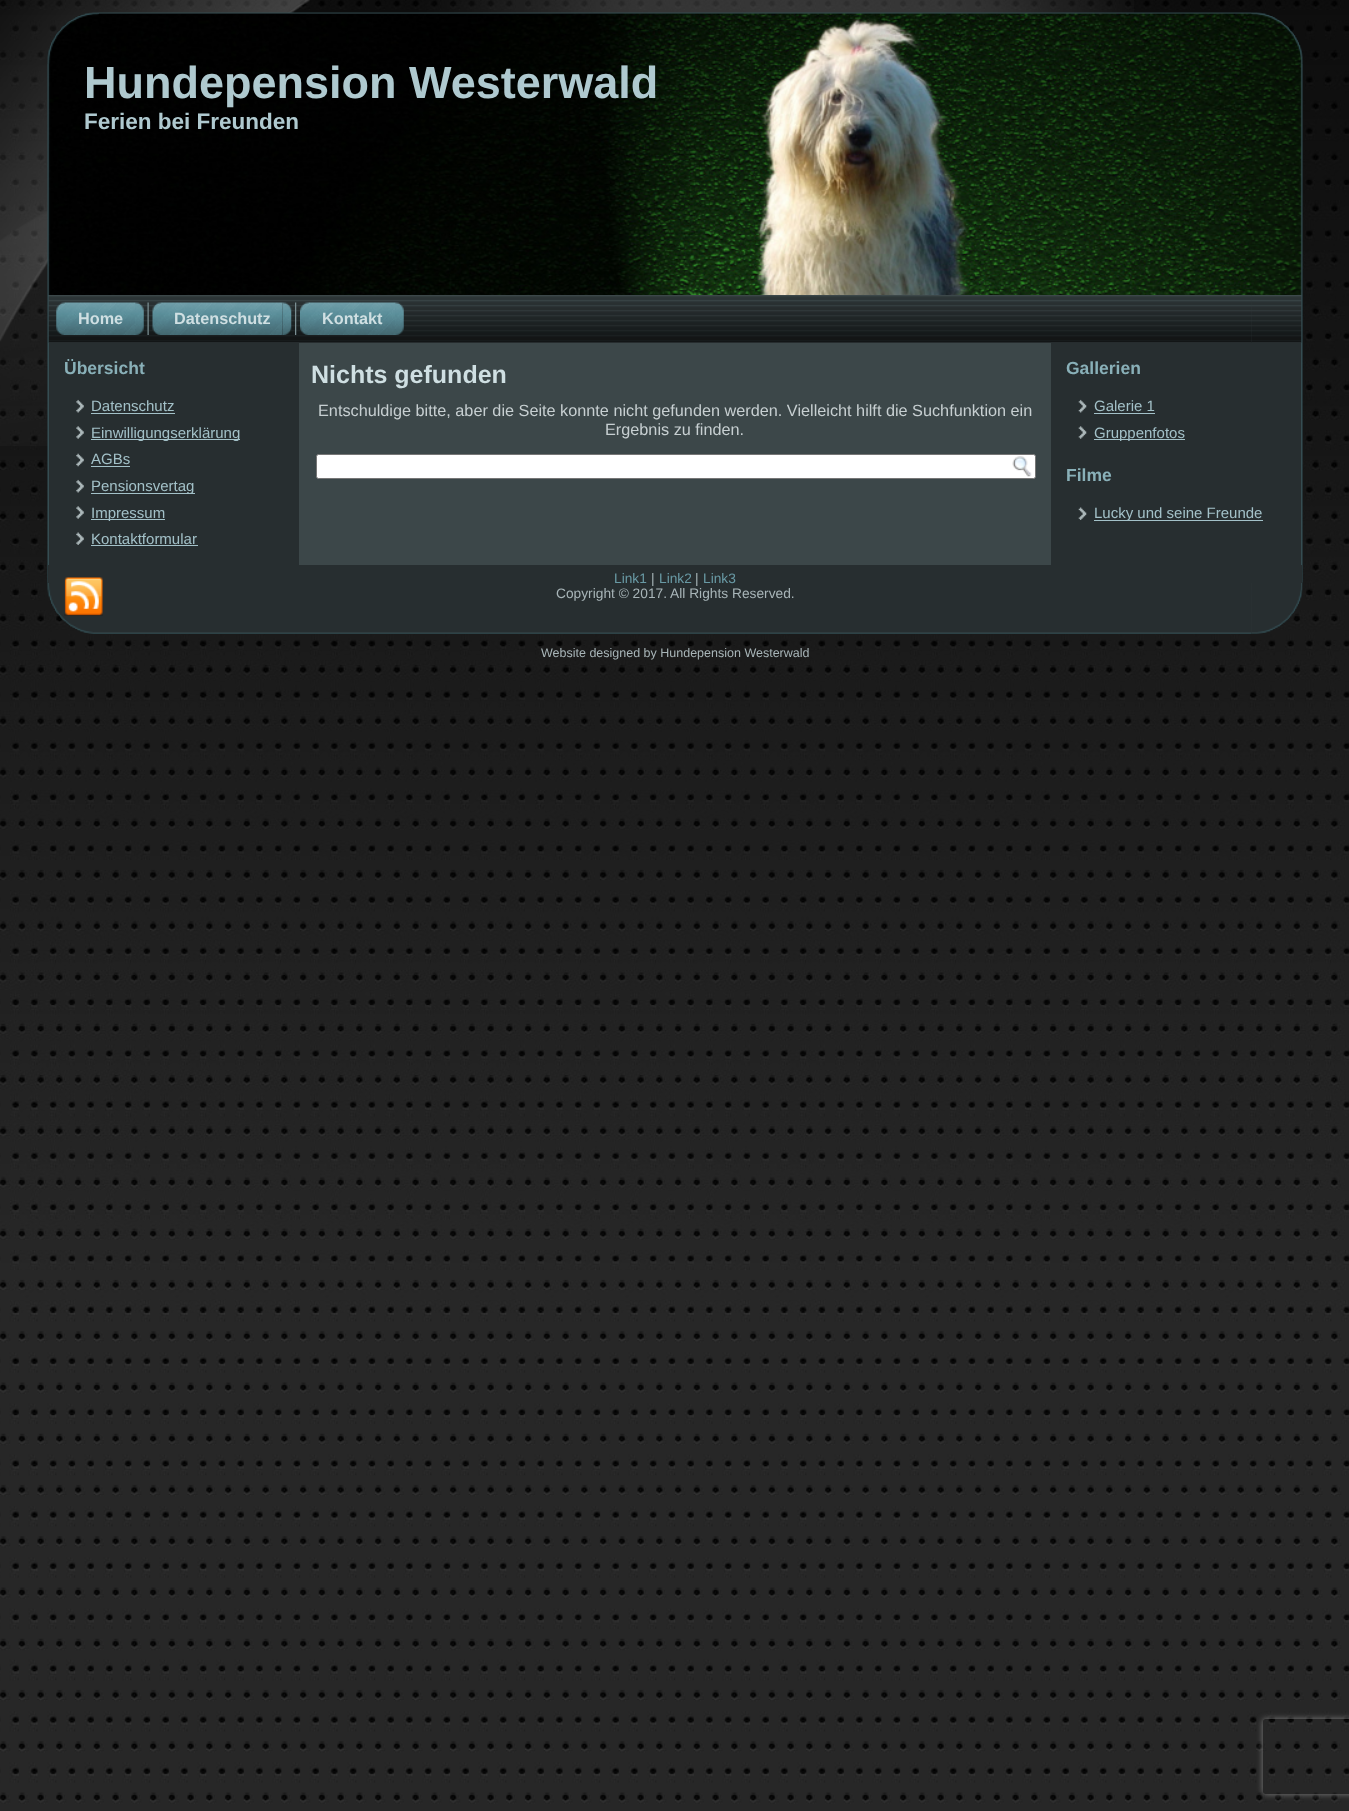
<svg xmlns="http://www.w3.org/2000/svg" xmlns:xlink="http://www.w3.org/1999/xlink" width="1349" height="1811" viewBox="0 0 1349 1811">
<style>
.cls-1{font:bold 45px Liberation Sans;fill:#afc9cf}
.cls-2{font:bold 22.5px Liberation Sans;fill:#afc9cf}
.cls-3{font:bold 16.25px Liberation Sans;fill:#cfdfe2}
.cls-4{font:bold 17.5px Liberation Sans;fill:#89b0b8}
.cls-5{font:15px Liberation Sans;fill:#a3c1c8}
.cls-6{font:bold 25px Liberation Sans;fill:#cfdfe2}
.cls-7{font:16.25px Liberation Sans;fill:#c7cfd1}
.cls-8{font:13.75px Liberation Sans;fill:#699aa5}
.cls-9{font:13.75px Liberation Sans;fill:#a8b5b8}
.cls-10{font:12.5px Liberation Sans;fill:#a8b5b8}
</style>
<defs>
<clipPath id="clip1"><path d="M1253 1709H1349V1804H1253ZM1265.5 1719H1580.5C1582 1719 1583 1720 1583 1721.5V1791.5C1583 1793 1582 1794 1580.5 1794H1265.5C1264 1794 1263 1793 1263 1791.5V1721.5C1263 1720 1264 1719 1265.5 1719Z" clip-rule="evenodd"/></clipPath>
</defs>
<rect width="100%" height="100%" fill="#ffffff"/>
<image xlink:href="image0.png" x="0" y="1312" width="1349" height="499"/>
<image xlink:href="image1.png" x="0" y="0" width="1349" height="1313"/>
<image xlink:href="image2.png" x="0" y="0" width="1134" height="446"/>
<image xlink:href="image3.png" x="47" y="12" width="1205" height="622"/>
<image xlink:href="image4.png" x="47" y="12" width="1205" height="52"/>
<image xlink:href="image7.png" x="47" y="63" width="1205" height="520"/>
<image xlink:href="image8.png" x="1251" y="63" width="52" height="520"/>
<image xlink:href="image5.png" x="1251" y="12" width="52" height="622"/>
<image xlink:href="image6.png" x="1251" y="12" width="52" height="52"/>
<image xlink:href="image9.png" x="48" y="13" width="1254" height="282"/>
<image xlink:href="image10.png" x="99" y="13" width="1153" height="281"/>
<image xlink:href="image11.png" x="48" y="296" width="1204" height="47"/>
<image xlink:href="image12.png" x="1251" y="295" width="51" height="48"/>
<image xlink:href="image13.png" x="56" y="302" width="79" height="33"/>
<image xlink:href="image14.png" x="135" y="302" width="9" height="33"/>
<image xlink:href="image15.png" x="147" y="302" width="2" height="33"/>
<image xlink:href="image16.png" x="152" y="302" width="131" height="33"/>
<image xlink:href="image17.png" x="282" y="302" width="10" height="33"/>
<image xlink:href="image18.png" x="295" y="302" width="2" height="33"/>
<image xlink:href="image19.png" x="300" y="302" width="95" height="33"/>
<image xlink:href="image14.png" x="395" y="302" width="9" height="33"/>
<rect fill="#272e30" x="49" y="343" width="250" height="222"/>
<image xlink:href="image20.png" x="76" y="399" width="8" height="14"/>
<rect fill="#a3c1c8" x="91" y="413" width="84" height="1"/>
<image xlink:href="image21.png" x="76" y="426" width="8" height="13"/>
<rect fill="#a3c1c8" x="91" y="439" width="149" height="1"/>
<image xlink:href="image22.png" x="76" y="453" width="8" height="14"/>
<rect fill="#a3c1c8" x="91" y="466" width="39" height="1"/>
<image xlink:href="image20.png" x="76" y="479" width="8" height="14"/>
<rect fill="#a3c1c8" x="91" y="493" width="104" height="1"/>
<image xlink:href="image21.png" x="76" y="506" width="8" height="13"/>
<rect fill="#a3c1c8" x="91" y="519" width="74" height="1"/>
<image xlink:href="image23.png" x="76" y="532" width="8" height="13"/>
<rect fill="#a3c1c8" x="91" y="545" width="107" height="1"/>
<rect fill="#ffffff" stroke="#767676" x="316.5" y="454.5" width="719" height="24" rx="2"/>
<image xlink:href="image24.png" x="1012" y="456" width="20" height="21"/>
<rect fill="#272e30" x="1051" y="343" width="250" height="222"/>
<image xlink:href="image25.png" x="1078" y="399" width="9" height="14"/>
<rect fill="#a3c1c8" x="1094" y="413" width="61" height="1"/>
<image xlink:href="image26.png" x="1078" y="426" width="9" height="13"/>
<rect fill="#a3c1c8" x="1094" y="439" width="91" height="1"/>
<image xlink:href="image27.png" x="1078" y="507" width="9" height="13"/>
<rect fill="#a3c1c8" x="1094" y="520" width="169" height="1"/>
<rect fill="#272e30" x="48" y="565" width="1254" height="18"/>
<image xlink:href="image29.png" x="48" y="583" width="1204" height="50"/>
<image xlink:href="image28.png" x="64" y="577" width="39" height="39"/>
<image xlink:href="image30.png" x="1251" y="583" width="51" height="50"/>
<g clip-path="url(#clip1)">
<rect fill="#808080" filter="blur(3px)" x="1263" y="1719" width="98" height="75" rx="2.5"/>
</g>
<text class="cls-1" x="84" y="98">Hundepension Westerwald</text>
<text class="cls-2" x="84" y="129">Ferien bei Freunden</text>
<text class="cls-3" x="78" y="324">Home</text>
<text class="cls-3" x="174" y="324">Datenschutz</text>
<text class="cls-3" x="322" y="324">Kontakt</text>
<text class="cls-4" x="64" y="374">Übersicht</text>
<text class="cls-5"><tspan x="91" y="411">Datenschutz</tspan><tspan x="91" y="438">Einwilligungserklärung</tspan><tspan x="91" y="464">AGBs</tspan><tspan x="91" y="491">Pensionsvertag</tspan><tspan x="91" y="518">Impressum</tspan><tspan x="91" y="544">Kontaktformular</tspan></text>
<text class="cls-6" x="311" y="383">Nichts gefunden</text>
<text class="cls-7" x="318" y="416">Entschuldige bitte, aber die Seite konnte nicht gefunden werden. Vielleicht hilft die Suchfunktion ein</text>
<text class="cls-7" x="605" y="435">Ergebnis zu finden.</text>
<text class="cls-4" x="1066" y="374">Gallerien</text>
<text class="cls-5"><tspan x="1094" y="411">Galerie 1</tspan><tspan x="1094" y="438">Gruppenfotos</tspan></text>
<text class="cls-4" x="1066" y="481">Filme</text>
<text class="cls-5" x="1094" y="518">Lucky und seine Freunde</text>
<text class="cls-8" x="614" y="583">Link1</text>
<text class="cls-9" x="651" y="583">|</text>
<text class="cls-8" x="659" y="583">Link2</text>
<text class="cls-9" x="695" y="583">|</text>
<text class="cls-8" x="703" y="583">Link3</text>
<text class="cls-9" x="556" y="598">Copyright © 2017. All Rights Reserved.</text>
<text class="cls-10" x="541" y="657">Website designed by Hundepension Westerwald</text>
</svg>
